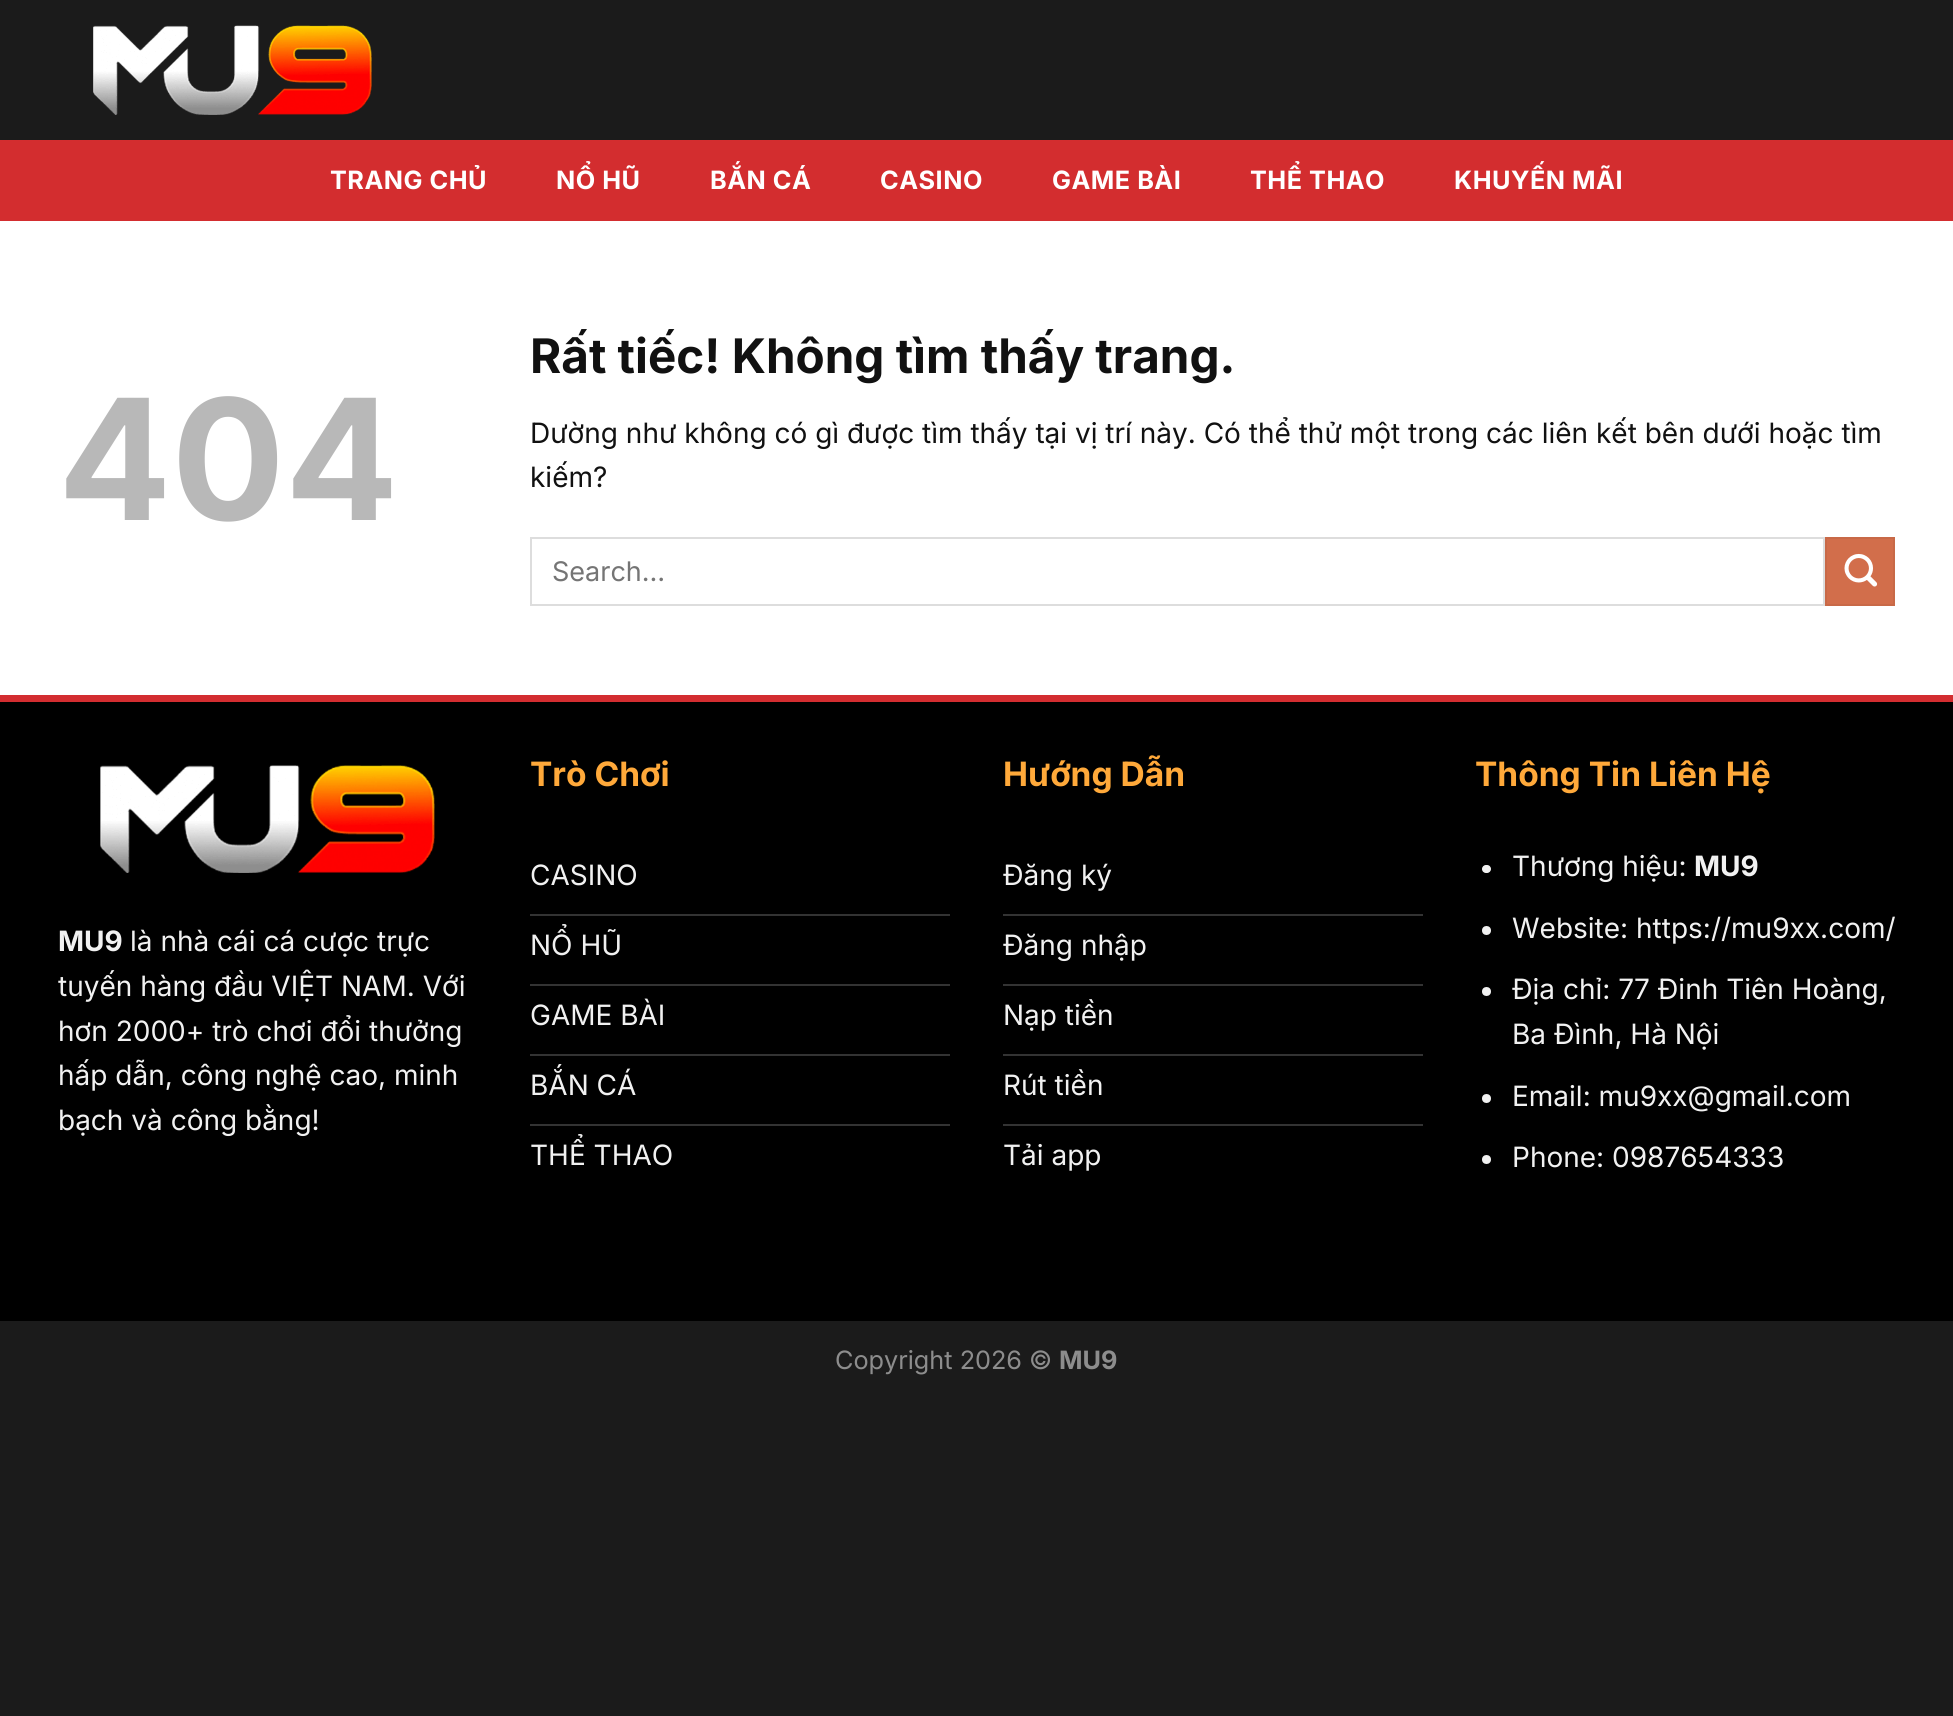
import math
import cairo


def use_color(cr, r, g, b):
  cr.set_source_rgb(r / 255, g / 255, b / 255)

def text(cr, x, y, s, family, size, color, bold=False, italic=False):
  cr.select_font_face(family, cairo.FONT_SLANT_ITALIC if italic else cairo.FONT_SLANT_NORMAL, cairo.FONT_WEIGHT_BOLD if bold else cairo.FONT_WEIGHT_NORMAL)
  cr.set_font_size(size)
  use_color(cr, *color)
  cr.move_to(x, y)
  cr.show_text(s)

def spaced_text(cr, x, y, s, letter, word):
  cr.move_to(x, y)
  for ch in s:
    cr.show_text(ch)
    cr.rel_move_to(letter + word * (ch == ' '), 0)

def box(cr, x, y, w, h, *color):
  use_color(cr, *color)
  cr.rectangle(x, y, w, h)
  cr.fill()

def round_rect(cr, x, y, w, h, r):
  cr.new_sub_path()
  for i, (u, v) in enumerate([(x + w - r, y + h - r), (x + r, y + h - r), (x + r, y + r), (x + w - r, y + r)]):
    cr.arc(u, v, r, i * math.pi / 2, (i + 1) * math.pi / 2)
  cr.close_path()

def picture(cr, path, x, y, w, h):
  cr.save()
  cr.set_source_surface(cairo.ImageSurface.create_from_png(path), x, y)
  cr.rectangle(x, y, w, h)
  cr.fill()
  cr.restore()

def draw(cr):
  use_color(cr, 27, 27, 27)
  cr.paint()
  box(cr, 0, 221, 1953, 474, 255, 255, 255)
  picture(cr, "img_01.png", 93, 25, 279, 90)
  box(cr, 0, 140, 1953, 81, 211, 45, 47)
  cr.rectangle(531, 538, 1293, 67)
  use_color(cr, 221, 221, 221)
  cr.stroke()
  use_color(cr, 210, 110, 75)
  cr.rectangle(1826, 538, 68, 67)
  cr.fill_preserve()
  use_color(cr, 200, 105, 71)
  cr.stroke()
  picture(cr, "img_02.png", 1844, 553, 34, 34)
  box(cr, 0, 702, 1953, 619, 0, 0, 0)
  box(cr, 0, 695, 1953, 7, 211, 45, 48)
  picture(cr, "img_03.png", 100, 765, 335, 108)
  box(cr, 530, 914, 420, 2, 51, 51, 51)
  box(cr, 530, 984, 420, 2, 51, 51, 51)
  box(cr, 530, 1054, 420, 2, 51, 51, 51)
  box(cr, 530, 1124, 420, 2, 51, 51, 51)
  box(cr, 1003, 914, 420, 2, 51, 51, 51)
  box(cr, 1003, 984, 420, 2, 51, 51, 51)
  box(cr, 1003, 1054, 420, 2, 51, 51, 51)
  box(cr, 1003, 1124, 420, 2, 51, 51, 51)
  use_color(cr, 241, 241, 241)
  round_rect(cr, 1482, 865, 9, 8, 4)
  cr.fill()
  cr.arc(1486.5, 930.5, 4.5, 0, 2 * math.pi)
  cr.fill()
  cr.arc(1486.5, 991.5, 4.5, 0, 2 * math.pi)
  cr.fill()
  cr.arc(1486.5, 1098.5, 4.5, 0, 2 * math.pi)
  cr.fill()
  cr.arc(1486.5, 1159.5, 4.5, 0, 2 * math.pi)
  cr.fill()
  cr.select_font_face("Inter", cairo.FONT_SLANT_NORMAL, cairo.FONT_WEIGHT_BOLD)
  cr.set_font_size(25.25)
  use_color(cr, 255, 255, 255)
  spaced_text(cr, 330, 189, "TRANG CHỦ", 0.5, 0)
  spaced_text(cr, 556, 189, "NỔ HŨ", 0.5, 0)
  spaced_text(cr, 710, 189, "BẮN CÁ", 0.5, 0)
  spaced_text(cr, 880, 189, "CASINO", 0.5, 0)
  spaced_text(cr, 1052, 189, "GAME BÀI", 0.5, 0)
  spaced_text(cr, 1250, 189, "THỂ THAO", 0.5, 0)
  spaced_text(cr, 1454, 189, "KHUYẾN MÃI", 0.5, 0)
  text(cr, 58, 520, "404", "Inter", 168, (184, 184, 184), bold=True)
  text(cr, 530, 373, "Rất tiếc! Không tìm thấy trang.", "Inter", 47.6, (17, 17, 17), bold=True)
  text(cr, 530, 443, "Dường như không có gì được tìm thấy tại vị trí này. Có thể thử một trong các liên kết bên dưới hoặc tìm", "Inter", 28, (17, 17, 17))
  text(cr, 530, 487, "kiếm?", "Inter", 28, (17, 17, 17))
  text(cr, 552, 581, "Search…", "Inter", 27, (117, 117, 117))
  text(cr, 58, 951, "MU9", "Inter", 28, (241, 241, 241), bold=True)
  text(cr, 130, 951, "là nhà cái cá cược trực", "Inter", 28, (241, 241, 241))
  text(cr, 58, 996, "tuyến hàng đầu VIỆT NAM. Với", "Inter", 28, (241, 241, 241))
  text(cr, 58, 1041, "hơn 2000+ trò chơi đổi thưởng", "Inter", 28, (241, 241, 241))
  text(cr, 58, 1085, "hấp dẫn, công nghệ cao, minh", "Inter", 28, (241, 241, 241))
  text(cr, 58, 1130, "bạch và công bằng!", "Inter", 28, (241, 241, 241))
  text(cr, 530, 786, "Trò Chơi", "Inter", 33.5, (255, 169, 58), bold=True)
  text(cr, 530, 885, "CASINO", "Inter", 28, (241, 241, 241))
  text(cr, 530, 955, "NỔ HŨ", "Inter", 28, (241, 241, 241))
  text(cr, 530, 1025, "GAME BÀI", "Inter", 28, (241, 241, 241))
  text(cr, 530, 1095, "BẮN CÁ", "Inter", 28, (241, 241, 241))
  text(cr, 530, 1165, "THỂ THAO", "Inter", 28, (241, 241, 241))
  text(cr, 1003, 786, "Hướng Dẫn", "Inter", 33.5, (255, 169, 58), bold=True)
  text(cr, 1003, 885, "Đăng ký", "Inter", 28, (241, 241, 241))
  text(cr, 1003, 955, "Đăng nhập", "Inter", 28, (241, 241, 241))
  text(cr, 1003, 1025, "Nạp tiền", "Inter", 28, (241, 241, 241))
  text(cr, 1003, 1095, "Rút tiền", "Inter", 28, (241, 241, 241))
  text(cr, 1003, 1165, "Tải app", "Inter", 28, (241, 241, 241))
  text(cr, 1475, 786, "Thông Tin Liên Hệ", "Inter", 33.5, (255, 169, 58), bold=True)
  text(cr, 1512, 876, "Thương hiệu:", "Inter", 28, (241, 241, 241))
  text(cr, 1694, 876, "MU9", "Inter", 28, (241, 241, 241), bold=True)
  text(cr, 1512, 938, "Website: https://mu9xx.com/", "Inter", 28, (241, 241, 241))
  text(cr, 1512, 999, "Địa chỉ: 77 Đinh Tiên Hoàng,", "Inter", 28, (241, 241, 241))
  text(cr, 1512, 1044, "Ba Đình, Hà Nội", "Inter", 28, (241, 241, 241))
  text(cr, 1512, 1106, "Email: mu9xx@gmail.com", "Inter", 28, (241, 241, 241))
  text(cr, 1512, 1167, "Phone: 0987654333", "Inter", 28, (241, 241, 241))
  text(cr, 835, 1369, "Copyright 2026 ©", "Inter", 25.25, (141, 141, 141))
  text(cr, 1059, 1369, "MU9", "Inter", 25.25, (141, 141, 141), bold=True)


surface = cairo.ImageSurface(cairo.FORMAT_RGB24, 1953, 1716)
cr = cairo.Context(surface)
options = cairo.FontOptions()
options.set_hint_metrics(cairo.HINT_METRICS_OFF)
options.set_hint_style(cairo.HINT_STYLE_NONE)
cr.set_font_options(options)
cr.set_miter_limit(4)
draw(cr)
surface.write_to_png("out.png")
